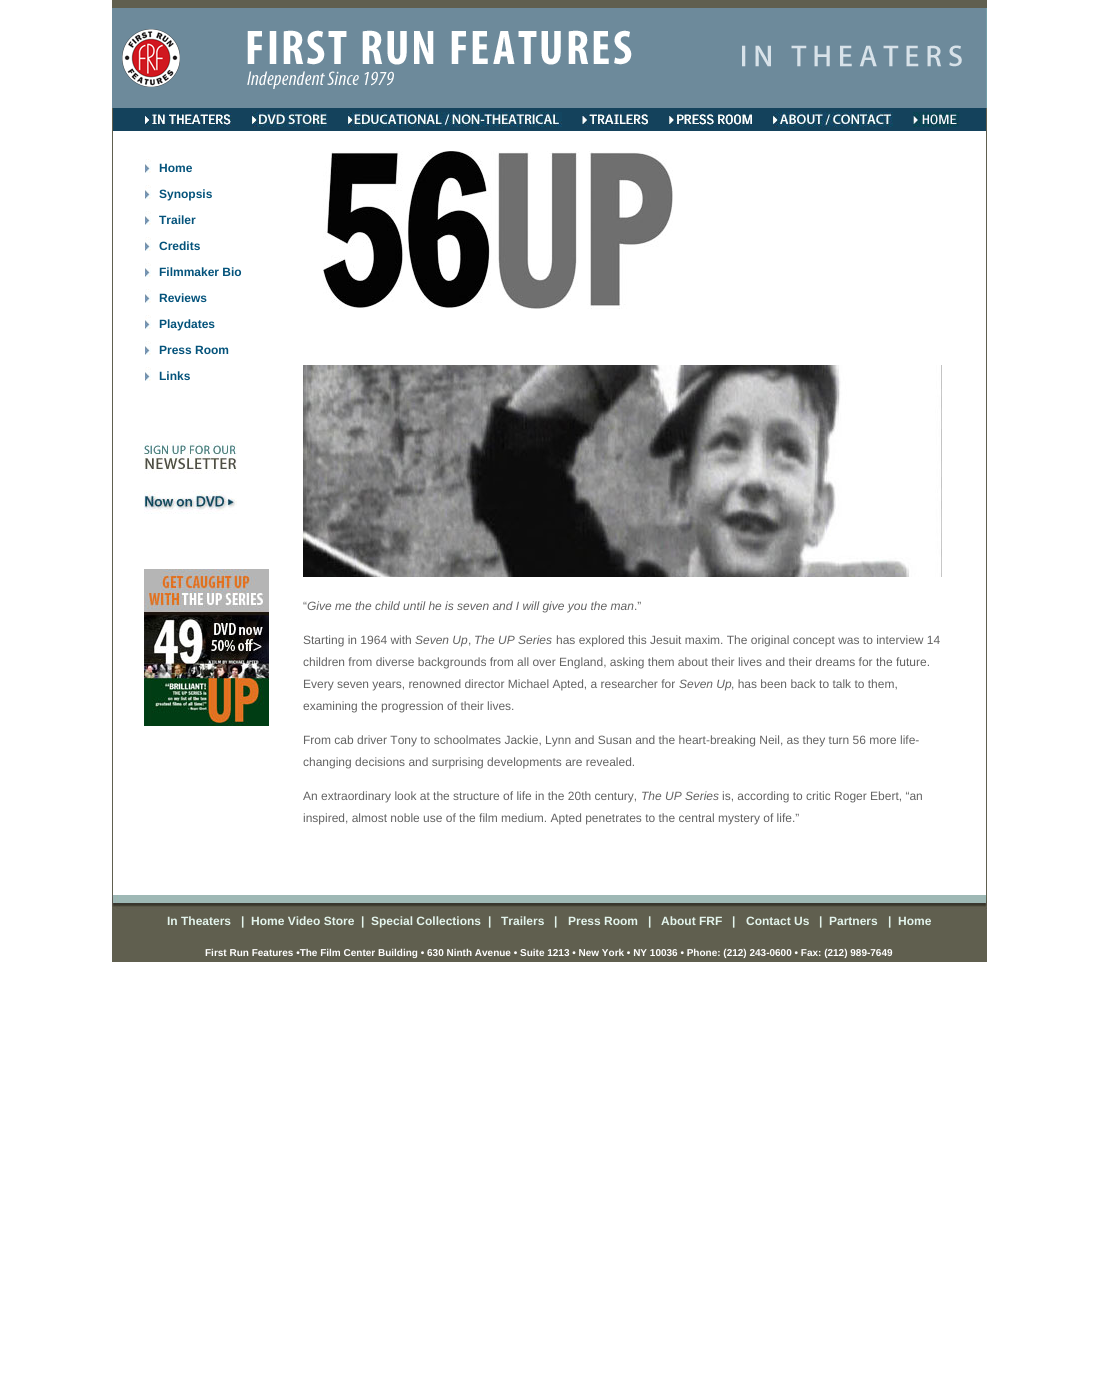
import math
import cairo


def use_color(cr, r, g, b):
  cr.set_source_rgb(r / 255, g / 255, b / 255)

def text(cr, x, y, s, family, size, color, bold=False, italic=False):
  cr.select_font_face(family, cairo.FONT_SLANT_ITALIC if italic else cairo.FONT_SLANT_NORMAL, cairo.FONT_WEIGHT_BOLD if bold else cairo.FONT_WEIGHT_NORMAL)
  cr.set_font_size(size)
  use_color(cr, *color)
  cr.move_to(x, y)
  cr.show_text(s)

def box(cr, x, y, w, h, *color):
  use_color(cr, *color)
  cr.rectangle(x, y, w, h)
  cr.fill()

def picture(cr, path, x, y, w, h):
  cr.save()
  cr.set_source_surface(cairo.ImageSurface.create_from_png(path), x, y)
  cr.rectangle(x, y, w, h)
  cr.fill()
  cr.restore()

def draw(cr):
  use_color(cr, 255, 255, 255)
  cr.paint()
  box(cr, 112, 0, 875, 8, 96, 95, 79)
  box(cr, 112, 8, 8, 100, 109, 138, 155)
  picture(cr, "img_01.png", 120, 8, 92, 100)
  box(cr, 212, 8, 33, 100, 109, 138, 155)
  picture(cr, "img_02.png", 245, 8, 394, 100)
  box(cr, 639, 8, 347, 100, 109, 138, 155)
  picture(cr, "img_03.png", 742, 45, 220, 22)
  box(cr, 986, 8, 1, 100, 115, 157, 167)
  box(cr, 112, 108, 1, 787, 96, 95, 79)
  box(cr, 113, 108, 873, 23, 20, 66, 92)
  picture(cr, "img_04.png", 145, 112, 87, 15)
  picture(cr, "img_05.png", 252, 112, 76, 15)
  picture(cr, "img_06.png", 348, 112, 214, 15)
  picture(cr, "img_07.png", 582, 112, 67, 15)
  picture(cr, "img_08.png", 669, 112, 84, 15)
  picture(cr, "img_09.png", 773, 112, 120, 15)
  picture(cr, "img_10.png", 913, 112, 46, 15)
  box(cr, 986, 108, 1, 787, 96, 95, 79)
  picture(cr, "img_11.png", 145, 159, 6, 14)
  picture(cr, "img_11.png", 145, 185, 6, 14)
  picture(cr, "img_11.png", 145, 211, 6, 14)
  picture(cr, "img_11.png", 145, 237, 6, 14)
  picture(cr, "img_11.png", 145, 263, 6, 14)
  picture(cr, "img_11.png", 145, 289, 6, 14)
  picture(cr, "img_11.png", 145, 315, 6, 14)
  picture(cr, "img_11.png", 145, 341, 6, 14)
  picture(cr, "img_11.png", 145, 367, 6, 14)
  picture(cr, "img_12.png", 144, 442, 93, 32)
  picture(cr, "img_13.png", 144, 490, 93, 24)
  picture(cr, "img_14.png", 144, 569, 125, 157)
  picture(cr, "img_15.png", 323, 151, 350, 158)
  picture(cr, "img_16.png", 303, 365, 639, 212)
  picture(cr, "img_17.png", 112, 895, 875, 15)
  box(cr, 112, 910, 875, 52, 96, 95, 79)
  text(cr, 159, 172, "Home", "Liberation Sans", 12, (4, 83, 123), bold=True)
  text(cr, 159, 198, "Synopsis", "Liberation Sans", 12, (4, 83, 123), bold=True)
  text(cr, 159, 224, "Trailer", "Liberation Sans", 12, (4, 83, 123), bold=True)
  text(cr, 159, 250, "Credits", "Liberation Sans", 12, (4, 83, 123), bold=True)
  text(cr, 159, 276, "Filmmaker Bio", "Liberation Sans", 12, (4, 83, 123), bold=True)
  text(cr, 159, 302, "Reviews", "Liberation Sans", 12, (4, 83, 123), bold=True)
  text(cr, 159, 328, "Playdates", "Liberation Sans", 12, (4, 83, 123), bold=True)
  text(cr, 159, 354, "Press Room", "Liberation Sans", 12, (4, 83, 123), bold=True)
  text(cr, 159, 380, "Links", "Liberation Sans", 12, (4, 83, 123), bold=True)
  text(cr, 303, 610, "“", "Liberation Sans", 12, (98, 98, 98))
  text(cr, 307, 610, "Give me the child until he is seven and I will give you the man", "Liberation Sans", 12, (98, 98, 98), italic=True)
  text(cr, 634, 610, ".”", "Liberation Sans", 12, (98, 98, 98))
  text(cr, 303, 644, "Starting in 1964 with", "Liberation Sans", 12, (98, 98, 98))
  text(cr, 415, 644, "Seven Up", "Liberation Sans", 12, (98, 98, 98), italic=True)
  text(cr, 468, 644, ",", "Liberation Sans", 12, (98, 98, 98))
  text(cr, 474, 644, "The UP Series", "Liberation Sans", 12, (98, 98, 98), italic=True)
  text(cr, 556, 644, "has explored this Jesuit maxim. The original concept was to interview 14", "Liberation Sans", 12, (98, 98, 98))
  text(cr, 303, 666, "children from diverse backgrounds from all over England, asking them about their lives and their dreams for the future.", "Liberation Sans", 12, (98, 98, 98))
  text(cr, 303, 688, "Every seven years, renowned director Michael Apted, a researcher for", "Liberation Sans", 12, (98, 98, 98))
  text(cr, 679, 688, "Seven Up", "Liberation Sans", 12, (98, 98, 98), italic=True)
  text(cr, 731, 688, ", has been back to talk to them,", "Liberation Sans", 12, (98, 98, 98))
  text(cr, 303, 710, "examining the progression of their lives.", "Liberation Sans", 12, (98, 98, 98))
  text(cr, 303, 744, "From cab driver Tony to schoolmates Jackie, Lynn and Susan and the heart-breaking Neil, as they turn 56 more life-", "Liberation Sans", 12, (98, 98, 98))
  text(cr, 303, 766, "changing decisions and surprising developments are revealed.", "Liberation Sans", 12, (98, 98, 98))
  text(cr, 303, 800, "An extraordinary look at the structure of life in the 20th century,", "Liberation Sans", 12, (98, 98, 98))
  text(cr, 641, 800, "The UP Series", "Liberation Sans", 12, (98, 98, 98), italic=True)
  text(cr, 722, 800, "is, according to critic Roger Ebert, “an", "Liberation Sans", 12, (98, 98, 98))
  text(cr, 303, 822, "inspired, almost noble use of the film medium. Apted penetrates to the central mystery of life.”", "Liberation Sans", 12, (98, 98, 98))
  text(cr, 167, 925, "In Theaters", "Liberation Sans", 12, (227, 244, 236), bold=True)
  text(cr, 241, 925, "|", "Liberation Sans", 12, (227, 244, 236), bold=True)
  text(cr, 251, 925, "Home Video Store", "Liberation Sans", 12, (227, 244, 236), bold=True)
  text(cr, 361, 925, "|", "Liberation Sans", 12, (227, 244, 236), bold=True)
  text(cr, 371, 925, "Special Collections", "Liberation Sans", 12, (227, 244, 236), bold=True)
  text(cr, 488, 925, "|", "Liberation Sans", 12, (227, 244, 236), bold=True)
  text(cr, 501, 925, "Trailers", "Liberation Sans", 12, (227, 244, 236), bold=True)
  text(cr, 554, 925, "|", "Liberation Sans", 12, (227, 244, 236), bold=True)
  text(cr, 568, 925, "Press Room", "Liberation Sans", 12, (227, 244, 236), bold=True)
  text(cr, 648, 925, "|", "Liberation Sans", 12, (227, 244, 236), bold=True)
  text(cr, 661, 925, "About FRF", "Liberation Sans", 12, (227, 244, 236), bold=True)
  text(cr, 732, 925, "|", "Liberation Sans", 12, (227, 244, 236), bold=True)
  text(cr, 746, 925, "Contact Us", "Liberation Sans", 12, (227, 244, 236), bold=True)
  text(cr, 819, 925, "|", "Liberation Sans", 12, (227, 244, 236), bold=True)
  text(cr, 829, 925, "Partners", "Liberation Sans", 12, (227, 244, 236), bold=True)
  text(cr, 888, 925, "|", "Liberation Sans", 12, (227, 244, 236), bold=True)
  text(cr, 898, 925, "Home", "Liberation Sans", 12, (227, 244, 236), bold=True)
  text(cr, 205, 956, "First Run Features •The Film Center Building • 630 Ninth Avenue • Suite 1213 • New York • NY 10036 • Phone: (212) 243-0600 • Fax: (212) 989-7649", "Liberation Sans", 10, (255, 255, 255), bold=True)


surface = cairo.ImageSurface(cairo.FORMAT_RGB24, 1098, 1396)
cr = cairo.Context(surface)
options = cairo.FontOptions()
options.set_hint_metrics(cairo.HINT_METRICS_OFF)
options.set_hint_style(cairo.HINT_STYLE_NONE)
cr.set_font_options(options)
cr.set_miter_limit(4)
draw(cr)
surface.write_to_png("out.png")
